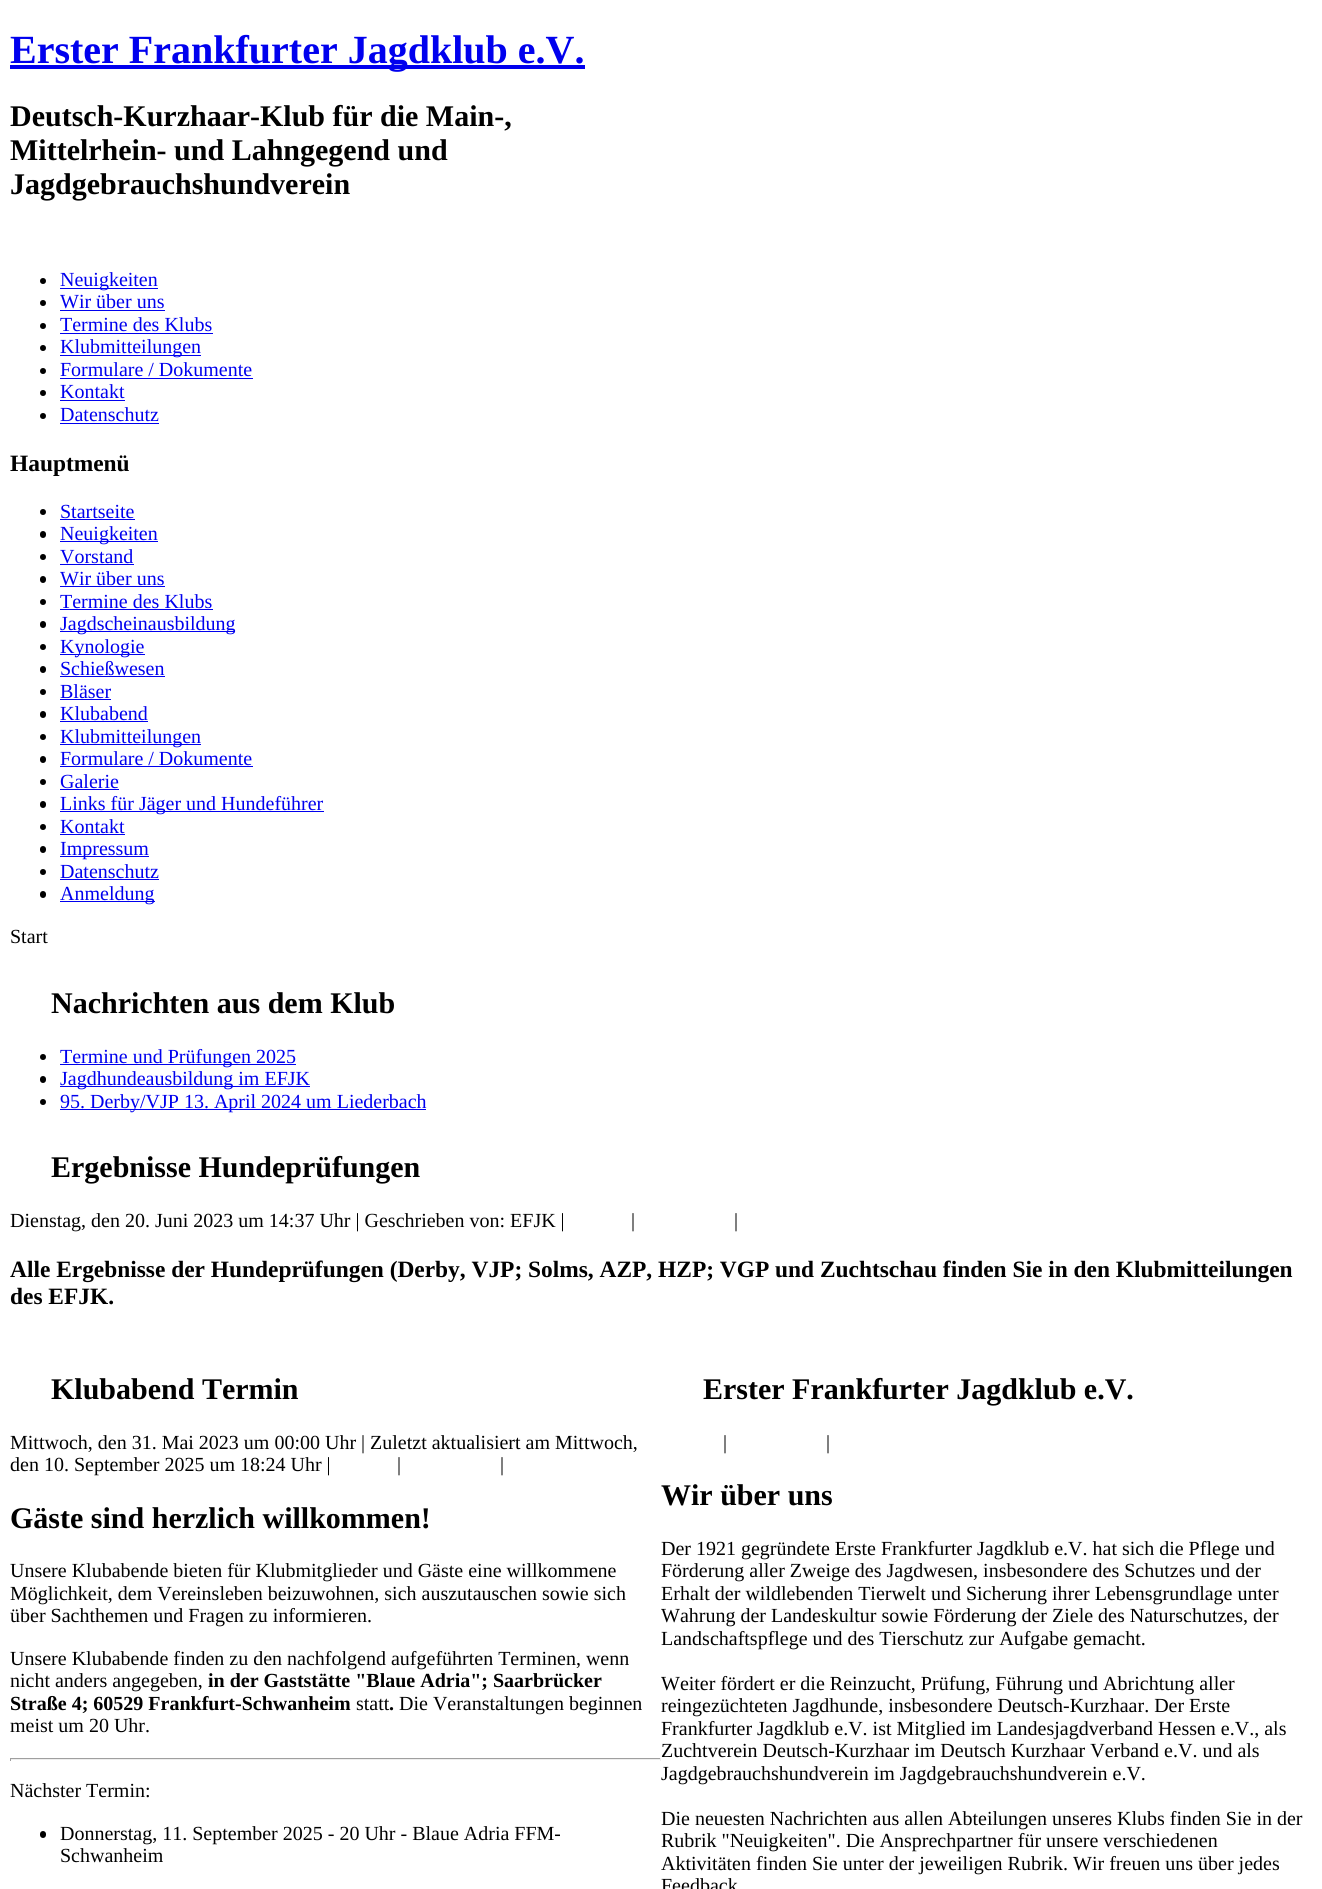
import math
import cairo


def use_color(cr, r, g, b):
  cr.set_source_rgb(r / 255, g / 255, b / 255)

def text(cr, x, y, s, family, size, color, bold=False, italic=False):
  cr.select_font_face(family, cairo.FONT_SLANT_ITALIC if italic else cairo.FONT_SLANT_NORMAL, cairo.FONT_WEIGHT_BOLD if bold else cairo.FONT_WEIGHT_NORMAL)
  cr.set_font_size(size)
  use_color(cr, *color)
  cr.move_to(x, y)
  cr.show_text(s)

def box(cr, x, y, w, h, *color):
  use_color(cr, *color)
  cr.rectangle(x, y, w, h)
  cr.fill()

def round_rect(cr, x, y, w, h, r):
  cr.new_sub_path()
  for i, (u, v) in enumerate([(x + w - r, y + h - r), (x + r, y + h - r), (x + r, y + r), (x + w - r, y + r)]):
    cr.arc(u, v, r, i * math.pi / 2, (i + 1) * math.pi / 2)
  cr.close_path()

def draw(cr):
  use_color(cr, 255, 255, 255)
  cr.paint()
  box(cr, 10, 65, 575, 4, 0, 0, 238)
  use_color(cr, 0, 0, 0)
  cr.arc(43, 281, 3, 0, 2 * math.pi)
  cr.fill()
  box(cr, 60, 288, 98, 1, 0, 0, 238)
  use_color(cr, 0, 0, 0)
  cr.arc(43, 303, 3, 0, 2 * math.pi)
  cr.fill()
  box(cr, 60, 310, 105, 1, 0, 0, 238)
  use_color(cr, 0, 0, 0)
  cr.arc(43, 326, 3, 0, 2 * math.pi)
  cr.fill()
  box(cr, 60, 333, 153, 1, 0, 0, 238)
  use_color(cr, 0, 0, 0)
  cr.arc(43, 348, 3, 0, 2 * math.pi)
  cr.fill()
  box(cr, 60, 355, 141, 1, 0, 0, 238)
  use_color(cr, 0, 0, 0)
  cr.arc(43, 371, 3, 0, 2 * math.pi)
  cr.fill()
  box(cr, 60, 378, 193, 1, 0, 0, 238)
  use_color(cr, 0, 0, 0)
  cr.arc(43, 393, 3, 0, 2 * math.pi)
  cr.fill()
  box(cr, 60, 400, 65, 1, 0, 0, 238)
  use_color(cr, 0, 0, 0)
  cr.arc(43, 416, 3, 0, 2 * math.pi)
  cr.fill()
  box(cr, 60, 423, 99, 1, 0, 0, 238)
  use_color(cr, 0, 0, 0)
  cr.arc(43, 512, 3, 0, 2 * math.pi)
  cr.fill()
  box(cr, 60, 519, 75, 1, 0, 0, 238)
  use_color(cr, 0, 0, 0)
  round_rect(cr, 40, 531, 6, 7, 3)
  cr.fill()
  box(cr, 60, 541, 98, 1, 0, 0, 238)
  use_color(cr, 0, 0, 0)
  cr.arc(43, 557, 3, 0, 2 * math.pi)
  cr.fill()
  box(cr, 60, 564, 74, 1, 0, 0, 238)
  use_color(cr, 0, 0, 0)
  round_rect(cr, 40, 576, 6, 7, 3)
  cr.fill()
  box(cr, 60, 586, 105, 1, 0, 0, 238)
  use_color(cr, 0, 0, 0)
  cr.arc(43, 602, 3, 0, 2 * math.pi)
  cr.fill()
  box(cr, 60, 609, 153, 1, 0, 0, 238)
  use_color(cr, 0, 0, 0)
  round_rect(cr, 40, 621, 6, 7, 3)
  cr.fill()
  box(cr, 60, 631, 175, 1, 0, 0, 238)
  use_color(cr, 0, 0, 0)
  cr.arc(43, 647, 3, 0, 2 * math.pi)
  cr.fill()
  box(cr, 60, 654, 85, 1, 0, 0, 238)
  use_color(cr, 0, 0, 0)
  round_rect(cr, 40, 666, 6, 7, 3)
  cr.fill()
  box(cr, 60, 676, 105, 1, 0, 0, 238)
  use_color(cr, 0, 0, 0)
  cr.arc(43, 692, 3, 0, 2 * math.pi)
  cr.fill()
  box(cr, 60, 699, 51, 1, 0, 0, 238)
  use_color(cr, 0, 0, 0)
  round_rect(cr, 40, 711, 6, 7, 3)
  cr.fill()
  box(cr, 60, 721, 88, 1, 0, 0, 238)
  use_color(cr, 0, 0, 0)
  cr.arc(43, 737, 3, 0, 2 * math.pi)
  cr.fill()
  box(cr, 60, 744, 141, 1, 0, 0, 238)
  use_color(cr, 0, 0, 0)
  round_rect(cr, 40, 756, 6, 7, 3)
  cr.fill()
  box(cr, 60, 766, 193, 1, 0, 0, 238)
  use_color(cr, 0, 0, 0)
  cr.arc(43, 782, 3, 0, 2 * math.pi)
  cr.fill()
  box(cr, 60, 789, 59, 1, 0, 0, 238)
  use_color(cr, 0, 0, 0)
  round_rect(cr, 40, 801, 6, 7, 3)
  cr.fill()
  box(cr, 60, 811, 264, 1, 0, 0, 238)
  use_color(cr, 0, 0, 0)
  cr.arc(43, 827, 3, 0, 2 * math.pi)
  cr.fill()
  box(cr, 60, 834, 65, 1, 0, 0, 238)
  use_color(cr, 0, 0, 0)
  round_rect(cr, 40, 846, 6, 7, 3)
  cr.fill()
  box(cr, 60, 856, 89, 1, 0, 0, 238)
  use_color(cr, 0, 0, 0)
  cr.arc(43, 872, 3, 0, 2 * math.pi)
  cr.fill()
  box(cr, 60, 879, 99, 1, 0, 0, 238)
  use_color(cr, 0, 0, 0)
  round_rect(cr, 40, 891, 6, 7, 3)
  cr.fill()
  box(cr, 60, 901, 95, 1, 0, 0, 238)
  use_color(cr, 0, 0, 0)
  cr.arc(43, 1057, 3, 0, 2 * math.pi)
  cr.fill()
  box(cr, 60, 1064, 236, 1, 0, 0, 238)
  use_color(cr, 0, 0, 0)
  round_rect(cr, 40, 1076, 6, 7, 3)
  cr.fill()
  box(cr, 60, 1086, 250, 1, 0, 0, 238)
  use_color(cr, 0, 0, 0)
  cr.arc(43, 1102, 3, 0, 2 * math.pi)
  cr.fill()
  box(cr, 60, 1109, 366, 1, 0, 0, 238)
  box(cr, 10, 1758, 651, 1, 159, 159, 159)
  box(cr, 660, 1758, 1, 3, 238, 238, 238)
  box(cr, 10, 1759, 651, 1, 238, 238, 238)
  box(cr, 10, 1758, 1, 3, 159, 159, 159)
  use_color(cr, 0, 0, 0)
  round_rect(cr, 40, 1831, 6, 7, 3)
  cr.fill()
  text(cr, 10, 63, "Erster Frankfurter Jagdklub e.V.", "Liberation Serif", 40, (0, 0, 238), bold=True)
  text(cr, 10, 126, "Deutsch-Kurzhaar-Klub für die Main-,", "Liberation Serif", 30, (0, 0, 0), bold=True)
  text(cr, 10, 160, "Mittelrhein- und Lahngegend und", "Liberation Serif", 30, (0, 0, 0), bold=True)
  text(cr, 10, 194, "Jagdgebrauchshundverein", "Liberation Serif", 30, (0, 0, 0), bold=True)
  text(cr, 60, 286, "Neuigkeiten", "Liberation Serif", 20, (0, 0, 238))
  text(cr, 60, 308, "Wir über uns", "Liberation Serif", 20, (0, 0, 238))
  text(cr, 60, 331, "Termine des Klubs", "Liberation Serif", 20, (0, 0, 238))
  text(cr, 60, 353, "Klubmitteilungen", "Liberation Serif", 20, (0, 0, 238))
  text(cr, 60, 376, "Formulare / Dokumente", "Liberation Serif", 20, (0, 0, 238))
  text(cr, 60, 398, "Kontakt", "Liberation Serif", 20, (0, 0, 238))
  text(cr, 60, 421, "Datenschutz", "Liberation Serif", 20, (0, 0, 238))
  text(cr, 10, 471, "Hauptmenü", "Liberation Serif", 23.4, (0, 0, 0), bold=True)
  text(cr, 60, 518, "Startseite", "Liberation Serif", 20, (0, 0, 238))
  text(cr, 60, 540, "Neuigkeiten", "Liberation Serif", 20, (0, 0, 238))
  text(cr, 60, 563, "Vorstand", "Liberation Serif", 20, (0, 0, 238))
  text(cr, 60, 585, "Wir über uns", "Liberation Serif", 20, (0, 0, 238))
  text(cr, 60, 608, "Termine des Klubs", "Liberation Serif", 20, (0, 0, 238))
  text(cr, 60, 630, "Jagdscheinausbildung", "Liberation Serif", 20, (0, 0, 238))
  text(cr, 60, 653, "Kynologie", "Liberation Serif", 20, (0, 0, 238))
  text(cr, 60, 675, "Schießwesen", "Liberation Serif", 20, (0, 0, 238))
  text(cr, 60, 698, "Bläser", "Liberation Serif", 20, (0, 0, 238))
  text(cr, 60, 720, "Klubabend", "Liberation Serif", 20, (0, 0, 238))
  text(cr, 60, 743, "Klubmitteilungen", "Liberation Serif", 20, (0, 0, 238))
  text(cr, 60, 765, "Formulare / Dokumente", "Liberation Serif", 20, (0, 0, 238))
  text(cr, 60, 788, "Galerie", "Liberation Serif", 20, (0, 0, 238))
  text(cr, 60, 810, "Links für Jäger und Hundeführer", "Liberation Serif", 20, (0, 0, 238))
  text(cr, 60, 833, "Kontakt", "Liberation Serif", 20, (0, 0, 238))
  text(cr, 60, 855, "Impressum", "Liberation Serif", 20, (0, 0, 238))
  text(cr, 60, 878, "Datenschutz", "Liberation Serif", 20, (0, 0, 238))
  text(cr, 60, 900, "Anmeldung", "Liberation Serif", 20, (0, 0, 238))
  text(cr, 10, 943, "Start", "Liberation Serif", 20, (0, 0, 0))
  text(cr, 51, 1013, "Nachrichten aus dem Klub", "Liberation Serif", 30, (0, 0, 0), bold=True)
  text(cr, 60, 1063, "Termine und Prüfungen 2025", "Liberation Serif", 20, (0, 0, 238))
  text(cr, 60, 1085, "Jagdhundeausbildung im EFJK", "Liberation Serif", 20, (0, 0, 238))
  text(cr, 60, 1108, "95. Derby/VJP 13. April 2024 um Liederbach", "Liberation Serif", 20, (0, 0, 238))
  text(cr, 51, 1177, "Ergebnisse Hundeprüfungen", "Liberation Serif", 30, (0, 0, 0), bold=True)
  text(cr, 10, 1227, "Dienstag, den 20. Juni 2023 um 14:37 Uhr | Geschrieben von: EFJK |", "Liberation Serif", 20, (0, 0, 0))
  text(cr, 631, 1227, "|", "Liberation Serif", 20, (0, 0, 0))
  text(cr, 734, 1227, "|", "Liberation Serif", 20, (0, 0, 0))
  text(cr, 10, 1277, "Alle Ergebnisse der Hundeprüfungen (Derby, VJP; Solms, AZP, HZP; VGP und Zuchtschau finden Sie in den Klubmitteilungen", "Liberation Serif", 23.4, (0, 0, 0), bold=True)
  text(cr, 10, 1304, "des EFJK.", "Liberation Serif", 23.4, (0, 0, 0), bold=True)
  text(cr, 51, 1399, "Klubabend Termin", "Liberation Serif", 30, (0, 0, 0), bold=True)
  text(cr, 10, 1449, "Mittwoch, den 31. Mai 2023 um 00:00 Uhr | Zuletzt aktualisiert am Mittwoch,", "Liberation Serif", 20, (0, 0, 0))
  text(cr, 10, 1471, "den 10. September 2025 um 18:24 Uhr |", "Liberation Serif", 20, (0, 0, 0))
  text(cr, 397, 1471, "|", "Liberation Serif", 20, (0, 0, 0))
  text(cr, 500, 1471, "|", "Liberation Serif", 20, (0, 0, 0))
  text(cr, 10, 1528, "Gäste sind herzlich willkommen!", "Liberation Serif", 30, (0, 0, 0), bold=True)
  text(cr, 10, 1577, "Unsere Klubabende bieten für Klubmitglieder und Gäste eine willkommene", "Liberation Serif", 20, (0, 0, 0))
  text(cr, 10, 1600, "Möglichkeit, dem Vereinsleben beizuwohnen, sich auszutauschen sowie sich", "Liberation Serif", 20, (0, 0, 0))
  text(cr, 10, 1622, "über Sachthemen und Fragen zu informieren.", "Liberation Serif", 20, (0, 0, 0))
  text(cr, 10, 1665, "Unsere Klubabende finden zu den nachfolgend aufgeführten Terminen, wenn", "Liberation Serif", 20, (0, 0, 0))
  text(cr, 10, 1687, "nicht anders angegeben,", "Liberation Serif", 20, (0, 0, 0))
  text(cr, 208, 1687, "in der Gaststätte \"Blaue Adria\"; Saarbrücker", "Liberation Serif", 20, (0, 0, 0), bold=True)
  text(cr, 10, 1710, "Straße 4; 60529 Frankfurt-Schwanheim", "Liberation Serif", 20, (0, 0, 0), bold=True)
  text(cr, 356, 1710, "statt", "Liberation Serif", 20, (0, 0, 0))
  text(cr, 389, 1710, ".", "Liberation Serif", 20, (0, 0, 0), bold=True)
  text(cr, 399, 1710, "Die Veranstaltungen beginnen", "Liberation Serif", 20, (0, 0, 0))
  text(cr, 10, 1732, "meist um 20 Uhr.", "Liberation Serif", 20, (0, 0, 0))
  text(cr, 10, 1797, "Nächster Termin:", "Liberation Serif", 20, (0, 0, 0))
  text(cr, 60, 1840, "Donnerstag, 11. September 2025 - 20 Uhr - Blaue Adria FFM-", "Liberation Serif", 20, (0, 0, 0))
  text(cr, 60, 1862, "Schwanheim", "Liberation Serif", 20, (0, 0, 0))
  text(cr, 703, 1399, "Erster Frankfurter Jagdklub e.V.", "Liberation Serif", 30, (0, 0, 0), bold=True)
  text(cr, 723, 1449, "|", "Liberation Serif", 20, (0, 0, 0))
  text(cr, 826, 1449, "|", "Liberation Serif", 20, (0, 0, 0))
  text(cr, 661, 1505, "Wir über uns", "Liberation Serif", 30, (0, 0, 0), bold=True)
  text(cr, 661, 1555, "Der 1921 gegründete Erste Frankfurter Jagdklub e.V. hat sich die Pflege und", "Liberation Serif", 20, (0, 0, 0))
  text(cr, 661, 1577, "Förderung aller Zweige des Jagdwesen, insbesondere des Schutzes und der", "Liberation Serif", 20, (0, 0, 0))
  text(cr, 661, 1600, "Erhalt der wildlebenden Tierwelt und Sicherung ihrer Lebensgrundlage unter", "Liberation Serif", 20, (0, 0, 0))
  text(cr, 661, 1622, "Wahrung der Landeskultur sowie Förderung der Ziele des Naturschutzes, der", "Liberation Serif", 20, (0, 0, 0))
  text(cr, 661, 1645, "Landschaftspflege und des Tierschutz zur Aufgabe gemacht.", "Liberation Serif", 20, (0, 0, 0))
  text(cr, 661, 1690, "Weiter fördert er die Reinzucht, Prüfung, Führung und Abrichtung aller", "Liberation Serif", 20, (0, 0, 0))
  text(cr, 661, 1712, "reingezüchteten Jagdhunde, insbesondere Deutsch-Kurzhaar. Der Erste", "Liberation Serif", 20, (0, 0, 0))
  text(cr, 661, 1735, "Frankfurter Jagdklub e.V. ist Mitglied im Landesjagdverband Hessen e.V., als", "Liberation Serif", 20, (0, 0, 0))
  text(cr, 661, 1757, "Zuchtverein Deutsch-Kurzhaar im Deutsch Kurzhaar Verband e.V. und als", "Liberation Serif", 20, (0, 0, 0))
  text(cr, 661, 1780, "Jagdgebrauchshundverein im Jagdgebrauchshundverein e.V.", "Liberation Serif", 20, (0, 0, 0))
  text(cr, 661, 1825, "Die neuesten Nachrichten aus allen Abteilungen unseres Klubs finden Sie in der", "Liberation Serif", 20, (0, 0, 0))
  text(cr, 661, 1847, "Rubrik \"Neuigkeiten\". Die Ansprechpartner für unsere verschiedenen", "Liberation Serif", 20, (0, 0, 0))
  text(cr, 661, 1870, "Aktivitäten finden Sie unter der jeweiligen Rubrik. Wir freuen uns über jedes", "Liberation Serif", 20, (0, 0, 0))
  text(cr, 661, 1892, "Feedback", "Liberation Serif", 20, (0, 0, 0))


surface = cairo.ImageSurface(cairo.FORMAT_RGB24, 1322, 1889)
cr = cairo.Context(surface)
options = cairo.FontOptions()
options.set_hint_metrics(cairo.HINT_METRICS_OFF)
options.set_hint_style(cairo.HINT_STYLE_NONE)
cr.set_font_options(options)
cr.set_miter_limit(4)
draw(cr)
surface.write_to_png("out.png")
